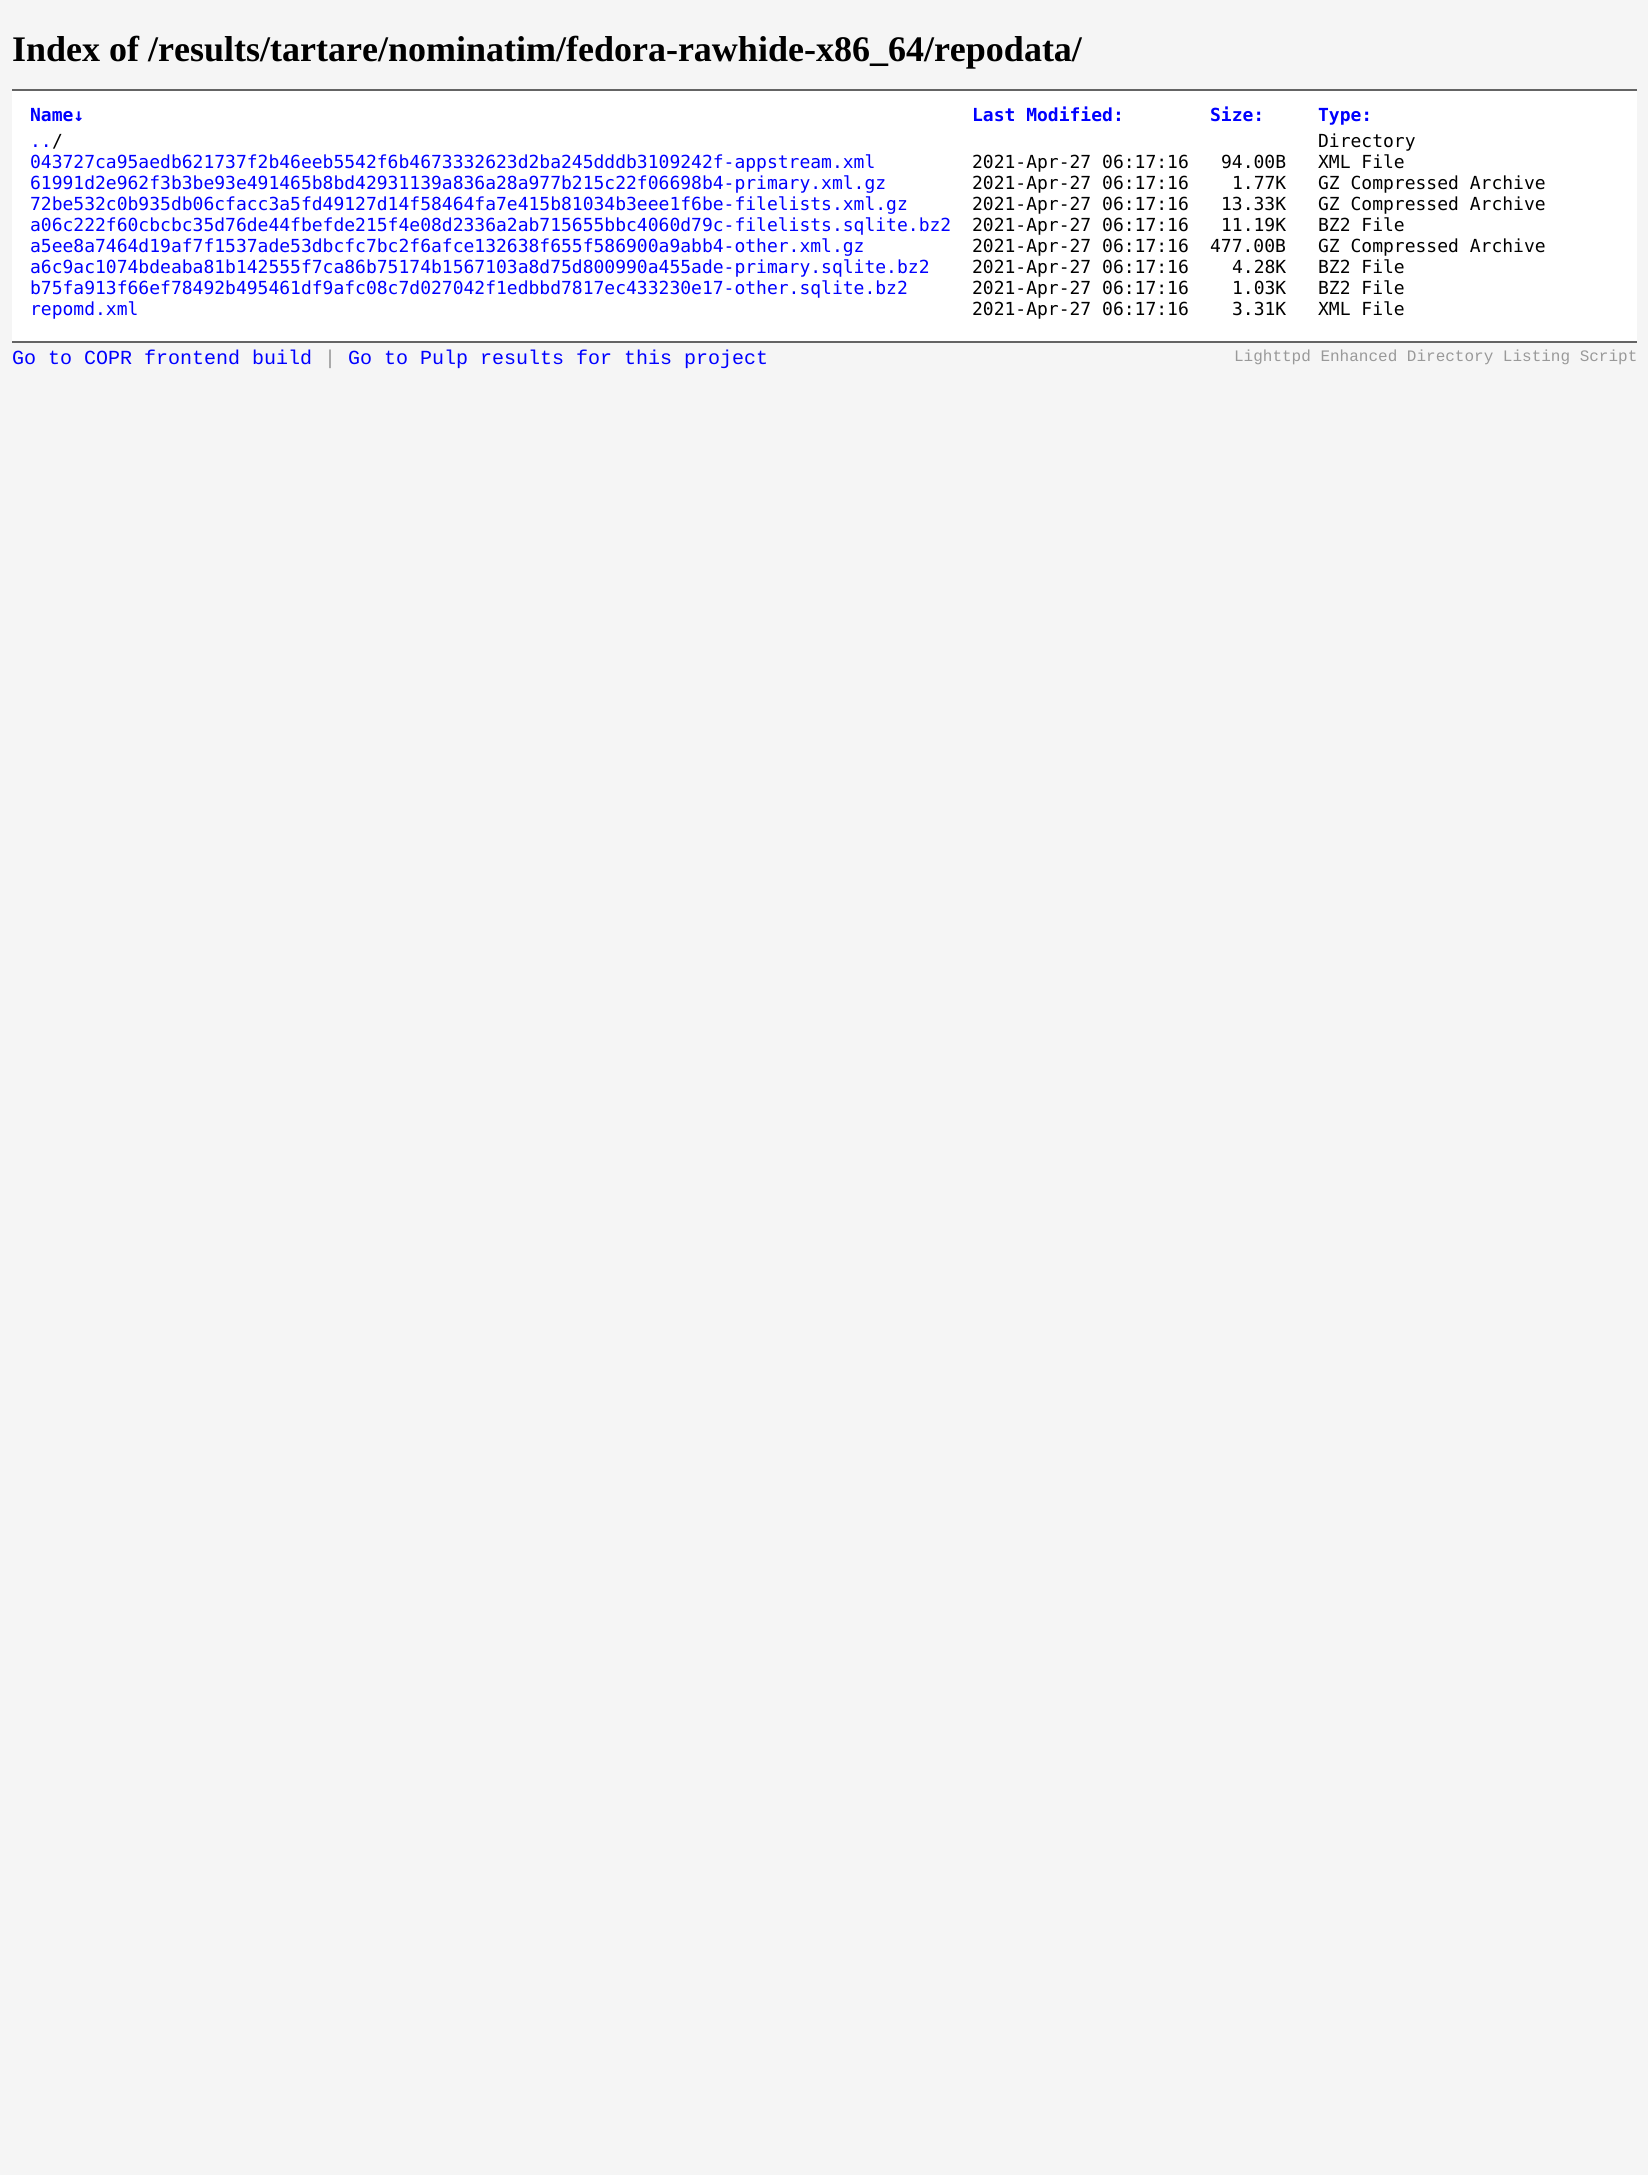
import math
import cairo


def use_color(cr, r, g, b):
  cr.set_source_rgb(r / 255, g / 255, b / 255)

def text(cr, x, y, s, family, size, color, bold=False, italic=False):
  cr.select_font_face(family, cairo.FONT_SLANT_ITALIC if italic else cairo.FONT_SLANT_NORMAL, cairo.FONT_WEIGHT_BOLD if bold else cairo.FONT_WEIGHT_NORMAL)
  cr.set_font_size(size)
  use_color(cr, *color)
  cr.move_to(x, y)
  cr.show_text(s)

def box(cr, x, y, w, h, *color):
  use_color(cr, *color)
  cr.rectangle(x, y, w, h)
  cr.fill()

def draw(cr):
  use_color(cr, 245, 245, 245)
  cr.paint()
  box(cr, 12, 91, 1625, 250, 255, 255, 255)
  box(cr, 12, 89, 1625, 2, 100, 100, 100)
  box(cr, 12, 341, 1625, 2, 100, 100, 100)
  text(cr, 12, 61, "Index of /results/tartare/nominatim/fedora-rawhide-x86_64/repodata/", "Liberation Serif", 36, (0, 0, 0), bold=True)
  text(cr, 30, 121, "Name↓", "DejaVu Sans Mono", 18, (0, 0, 255), bold=True)
  text(cr, 972, 121, "Last Modified:", "DejaVu Sans Mono", 18, (0, 0, 255), bold=True)
  text(cr, 1210, 121, "Size:", "DejaVu Sans Mono", 18, (0, 0, 255), bold=True)
  text(cr, 1318, 121, "Type:", "DejaVu Sans Mono", 18, (0, 0, 255), bold=True)
  text(cr, 30, 147, "..", "DejaVu Sans Mono", 18, (0, 0, 255))
  text(cr, 52, 147, "/", "DejaVu Sans Mono", 18, (0, 0, 0))
  text(cr, 1318, 147, "Directory", "DejaVu Sans Mono", 18, (0, 0, 0))
  text(cr, 30, 168, "043727ca95aedb621737f2b46eeb5542f6b4673332623d2ba245dddb3109242f-appstream.xml", "DejaVu Sans Mono", 18, (0, 0, 255))
  text(cr, 972, 168, "2021-Apr-27 06:17:16", "DejaVu Sans Mono", 18, (0, 0, 0))
  text(cr, 1221, 168, "94.00B", "DejaVu Sans Mono", 18, (0, 0, 0))
  text(cr, 1318, 168, "XML File", "DejaVu Sans Mono", 18, (0, 0, 0))
  text(cr, 30, 189, "61991d2e962f3b3be93e491465b8bd42931139a836a28a977b215c22f06698b4-primary.xml.gz", "DejaVu Sans Mono", 18, (0, 0, 255))
  text(cr, 972, 189, "2021-Apr-27 06:17:16", "DejaVu Sans Mono", 18, (0, 0, 0))
  text(cr, 1232, 189, "1.77K", "DejaVu Sans Mono", 18, (0, 0, 0))
  text(cr, 1318, 189, "GZ Compressed Archive", "DejaVu Sans Mono", 18, (0, 0, 0))
  text(cr, 30, 210, "72be532c0b935db06cfacc3a5fd49127d14f58464fa7e415b81034b3eee1f6be-filelists.xml.gz", "DejaVu Sans Mono", 18, (0, 0, 255))
  text(cr, 972, 210, "2021-Apr-27 06:17:16", "DejaVu Sans Mono", 18, (0, 0, 0))
  text(cr, 1221, 210, "13.33K", "DejaVu Sans Mono", 18, (0, 0, 0))
  text(cr, 1318, 210, "GZ Compressed Archive", "DejaVu Sans Mono", 18, (0, 0, 0))
  text(cr, 30, 231, "a06c222f60cbcbc35d76de44fbefde215f4e08d2336a2ab715655bbc4060d79c-filelists.sqlite.bz2", "DejaVu Sans Mono", 18, (0, 0, 255))
  text(cr, 972, 231, "2021-Apr-27 06:17:16", "DejaVu Sans Mono", 18, (0, 0, 0))
  text(cr, 1221, 231, "11.19K", "DejaVu Sans Mono", 18, (0, 0, 0))
  text(cr, 1318, 231, "BZ2 File", "DejaVu Sans Mono", 18, (0, 0, 0))
  text(cr, 30, 252, "a5ee8a7464d19af7f1537ade53dbcfc7bc2f6afce132638f655f586900a9abb4-other.xml.gz", "DejaVu Sans Mono", 18, (0, 0, 255))
  text(cr, 972, 252, "2021-Apr-27 06:17:16", "DejaVu Sans Mono", 18, (0, 0, 0))
  text(cr, 1210, 252, "477.00B", "DejaVu Sans Mono", 18, (0, 0, 0))
  text(cr, 1318, 252, "GZ Compressed Archive", "DejaVu Sans Mono", 18, (0, 0, 0))
  text(cr, 30, 273, "a6c9ac1074bdeaba81b142555f7ca86b75174b1567103a8d75d800990a455ade-primary.sqlite.bz2", "DejaVu Sans Mono", 18, (0, 0, 255))
  text(cr, 972, 273, "2021-Apr-27 06:17:16", "DejaVu Sans Mono", 18, (0, 0, 0))
  text(cr, 1232, 273, "4.28K", "DejaVu Sans Mono", 18, (0, 0, 0))
  text(cr, 1318, 273, "BZ2 File", "DejaVu Sans Mono", 18, (0, 0, 0))
  text(cr, 30, 294, "b75fa913f66ef78492b495461df9afc08c7d027042f1edbbd7817ec433230e17-other.sqlite.bz2", "DejaVu Sans Mono", 18, (0, 0, 255))
  text(cr, 972, 294, "2021-Apr-27 06:17:16", "DejaVu Sans Mono", 18, (0, 0, 0))
  text(cr, 1232, 294, "1.03K", "DejaVu Sans Mono", 18, (0, 0, 0))
  text(cr, 1318, 294, "BZ2 File", "DejaVu Sans Mono", 18, (0, 0, 0))
  text(cr, 30, 315, "repomd.xml", "DejaVu Sans Mono", 18, (0, 0, 255))
  text(cr, 972, 315, "2021-Apr-27 06:17:16", "DejaVu Sans Mono", 18, (0, 0, 0))
  text(cr, 1232, 315, "3.31K", "DejaVu Sans Mono", 18, (0, 0, 0))
  text(cr, 1318, 315, "XML File", "DejaVu Sans Mono", 18, (0, 0, 0))
  text(cr, 12, 364, "Go to COPR frontend build", "Liberation Mono", 20, (0, 0, 255))
  text(cr, 324, 364, "|", "Liberation Mono", 20, (153, 153, 153))
  text(cr, 348, 364, "Go to Pulp results for this project", "Liberation Mono", 20, (0, 0, 255))
  text(cr, 1234, 361, "Lighttpd Enhanced Directory Listing Script", "Liberation Mono", 16, (153, 153, 153))


surface = cairo.ImageSurface(cairo.FORMAT_RGB24, 1648, 2175)
cr = cairo.Context(surface)
options = cairo.FontOptions()
options.set_hint_metrics(cairo.HINT_METRICS_OFF)
options.set_hint_style(cairo.HINT_STYLE_NONE)
cr.set_font_options(options)
cr.set_miter_limit(4)
draw(cr)
surface.write_to_png("out.png")
